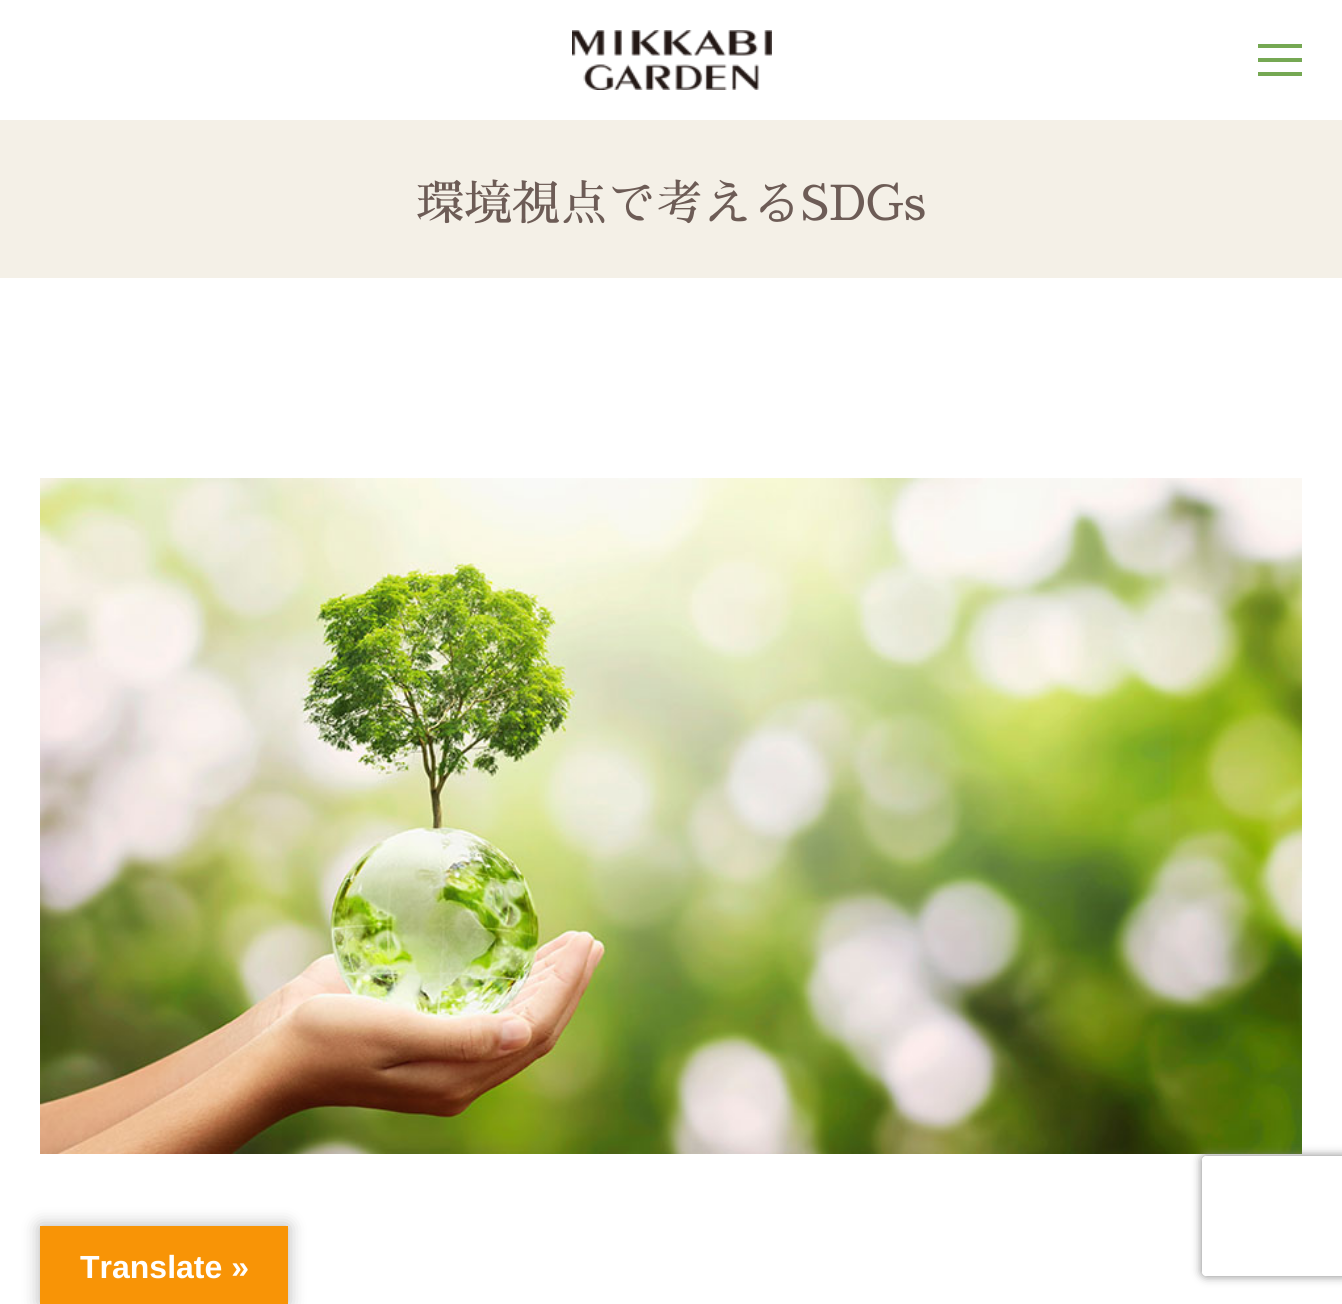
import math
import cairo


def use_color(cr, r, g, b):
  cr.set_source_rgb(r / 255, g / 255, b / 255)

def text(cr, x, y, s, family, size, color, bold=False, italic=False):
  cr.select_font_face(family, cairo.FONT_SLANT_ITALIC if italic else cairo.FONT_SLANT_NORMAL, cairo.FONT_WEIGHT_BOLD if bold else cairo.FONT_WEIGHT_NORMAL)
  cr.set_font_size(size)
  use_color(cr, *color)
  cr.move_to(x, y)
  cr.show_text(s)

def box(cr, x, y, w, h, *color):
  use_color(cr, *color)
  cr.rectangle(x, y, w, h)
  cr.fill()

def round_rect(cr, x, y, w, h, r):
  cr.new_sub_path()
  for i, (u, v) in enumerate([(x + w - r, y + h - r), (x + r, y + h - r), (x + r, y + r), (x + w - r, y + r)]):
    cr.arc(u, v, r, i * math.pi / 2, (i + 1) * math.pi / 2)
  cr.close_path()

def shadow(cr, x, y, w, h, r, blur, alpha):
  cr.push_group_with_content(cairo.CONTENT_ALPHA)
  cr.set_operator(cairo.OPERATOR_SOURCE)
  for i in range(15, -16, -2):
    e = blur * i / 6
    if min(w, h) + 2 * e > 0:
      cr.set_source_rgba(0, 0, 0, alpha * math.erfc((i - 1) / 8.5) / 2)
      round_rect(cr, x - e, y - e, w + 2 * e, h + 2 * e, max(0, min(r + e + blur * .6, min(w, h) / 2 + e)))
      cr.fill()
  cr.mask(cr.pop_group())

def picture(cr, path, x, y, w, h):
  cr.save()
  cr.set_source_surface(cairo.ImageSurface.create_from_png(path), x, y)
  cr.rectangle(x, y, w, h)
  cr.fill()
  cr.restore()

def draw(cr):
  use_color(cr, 255, 255, 255)
  cr.paint()
  picture(cr, "img_01.png", 572, 30, 200, 60)
  box(cr, 1258, 58, 44, 4, 117, 168, 83)
  box(cr, 1258, 44, 44, 4, 117, 168, 83)
  box(cr, 1258, 72, 44, 4, 117, 168, 83)
  box(cr, 0, 120, 1342, 158, 244, 240, 231)
  picture(cr, "img_02.png", 40, 478, 1262, 676)
  use_color(cr, 0, 0, 0)
  shadow(cr, 40, 1226, 248, 78, 0, 9, 0.3)
  box(cr, 40, 1226, 248, 78, 248, 148, 6)
  cr.save()
  cr.set_fill_rule(cairo.FILL_RULE_EVEN_ODD)
  cr.new_path()
  cr.move_to(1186, 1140)
  cr.line_to(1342, 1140)
  cr.line_to(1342, 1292)
  cr.line_to(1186, 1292)
  cr.close_path()
  cr.move_to(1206, 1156)
  cr.line_to(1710, 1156)
  cr.curve_to(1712, 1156, 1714, 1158, 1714, 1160)
  cr.line_to(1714, 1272)
  cr.curve_to(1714, 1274, 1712, 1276, 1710, 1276)
  cr.line_to(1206, 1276)
  cr.curve_to(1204, 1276, 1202, 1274, 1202, 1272)
  cr.line_to(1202, 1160)
  cr.curve_to(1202, 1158, 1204, 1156, 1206, 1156)
  cr.close_path()
  cr.clip()
  use_color(cr, 128, 128, 128)
  shadow(cr, 1202, 1156, 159, 120, 4, 5, 1)
  cr.restore()
  text(cr, 416, 220, "環境視点で考えるSDGs", "Sawarabi Mincho", 48, (109, 92, 86))
  text(cr, 80, 1278, "Translate »", "Liberation Sans", 32, (255, 255, 255), bold=True)


surface = cairo.ImageSurface(cairo.FORMAT_RGB24, 1342, 1304)
cr = cairo.Context(surface)
options = cairo.FontOptions()
options.set_hint_metrics(cairo.HINT_METRICS_OFF)
options.set_hint_style(cairo.HINT_STYLE_NONE)
cr.set_font_options(options)
cr.set_miter_limit(4)
draw(cr)
surface.write_to_png("out.png")
